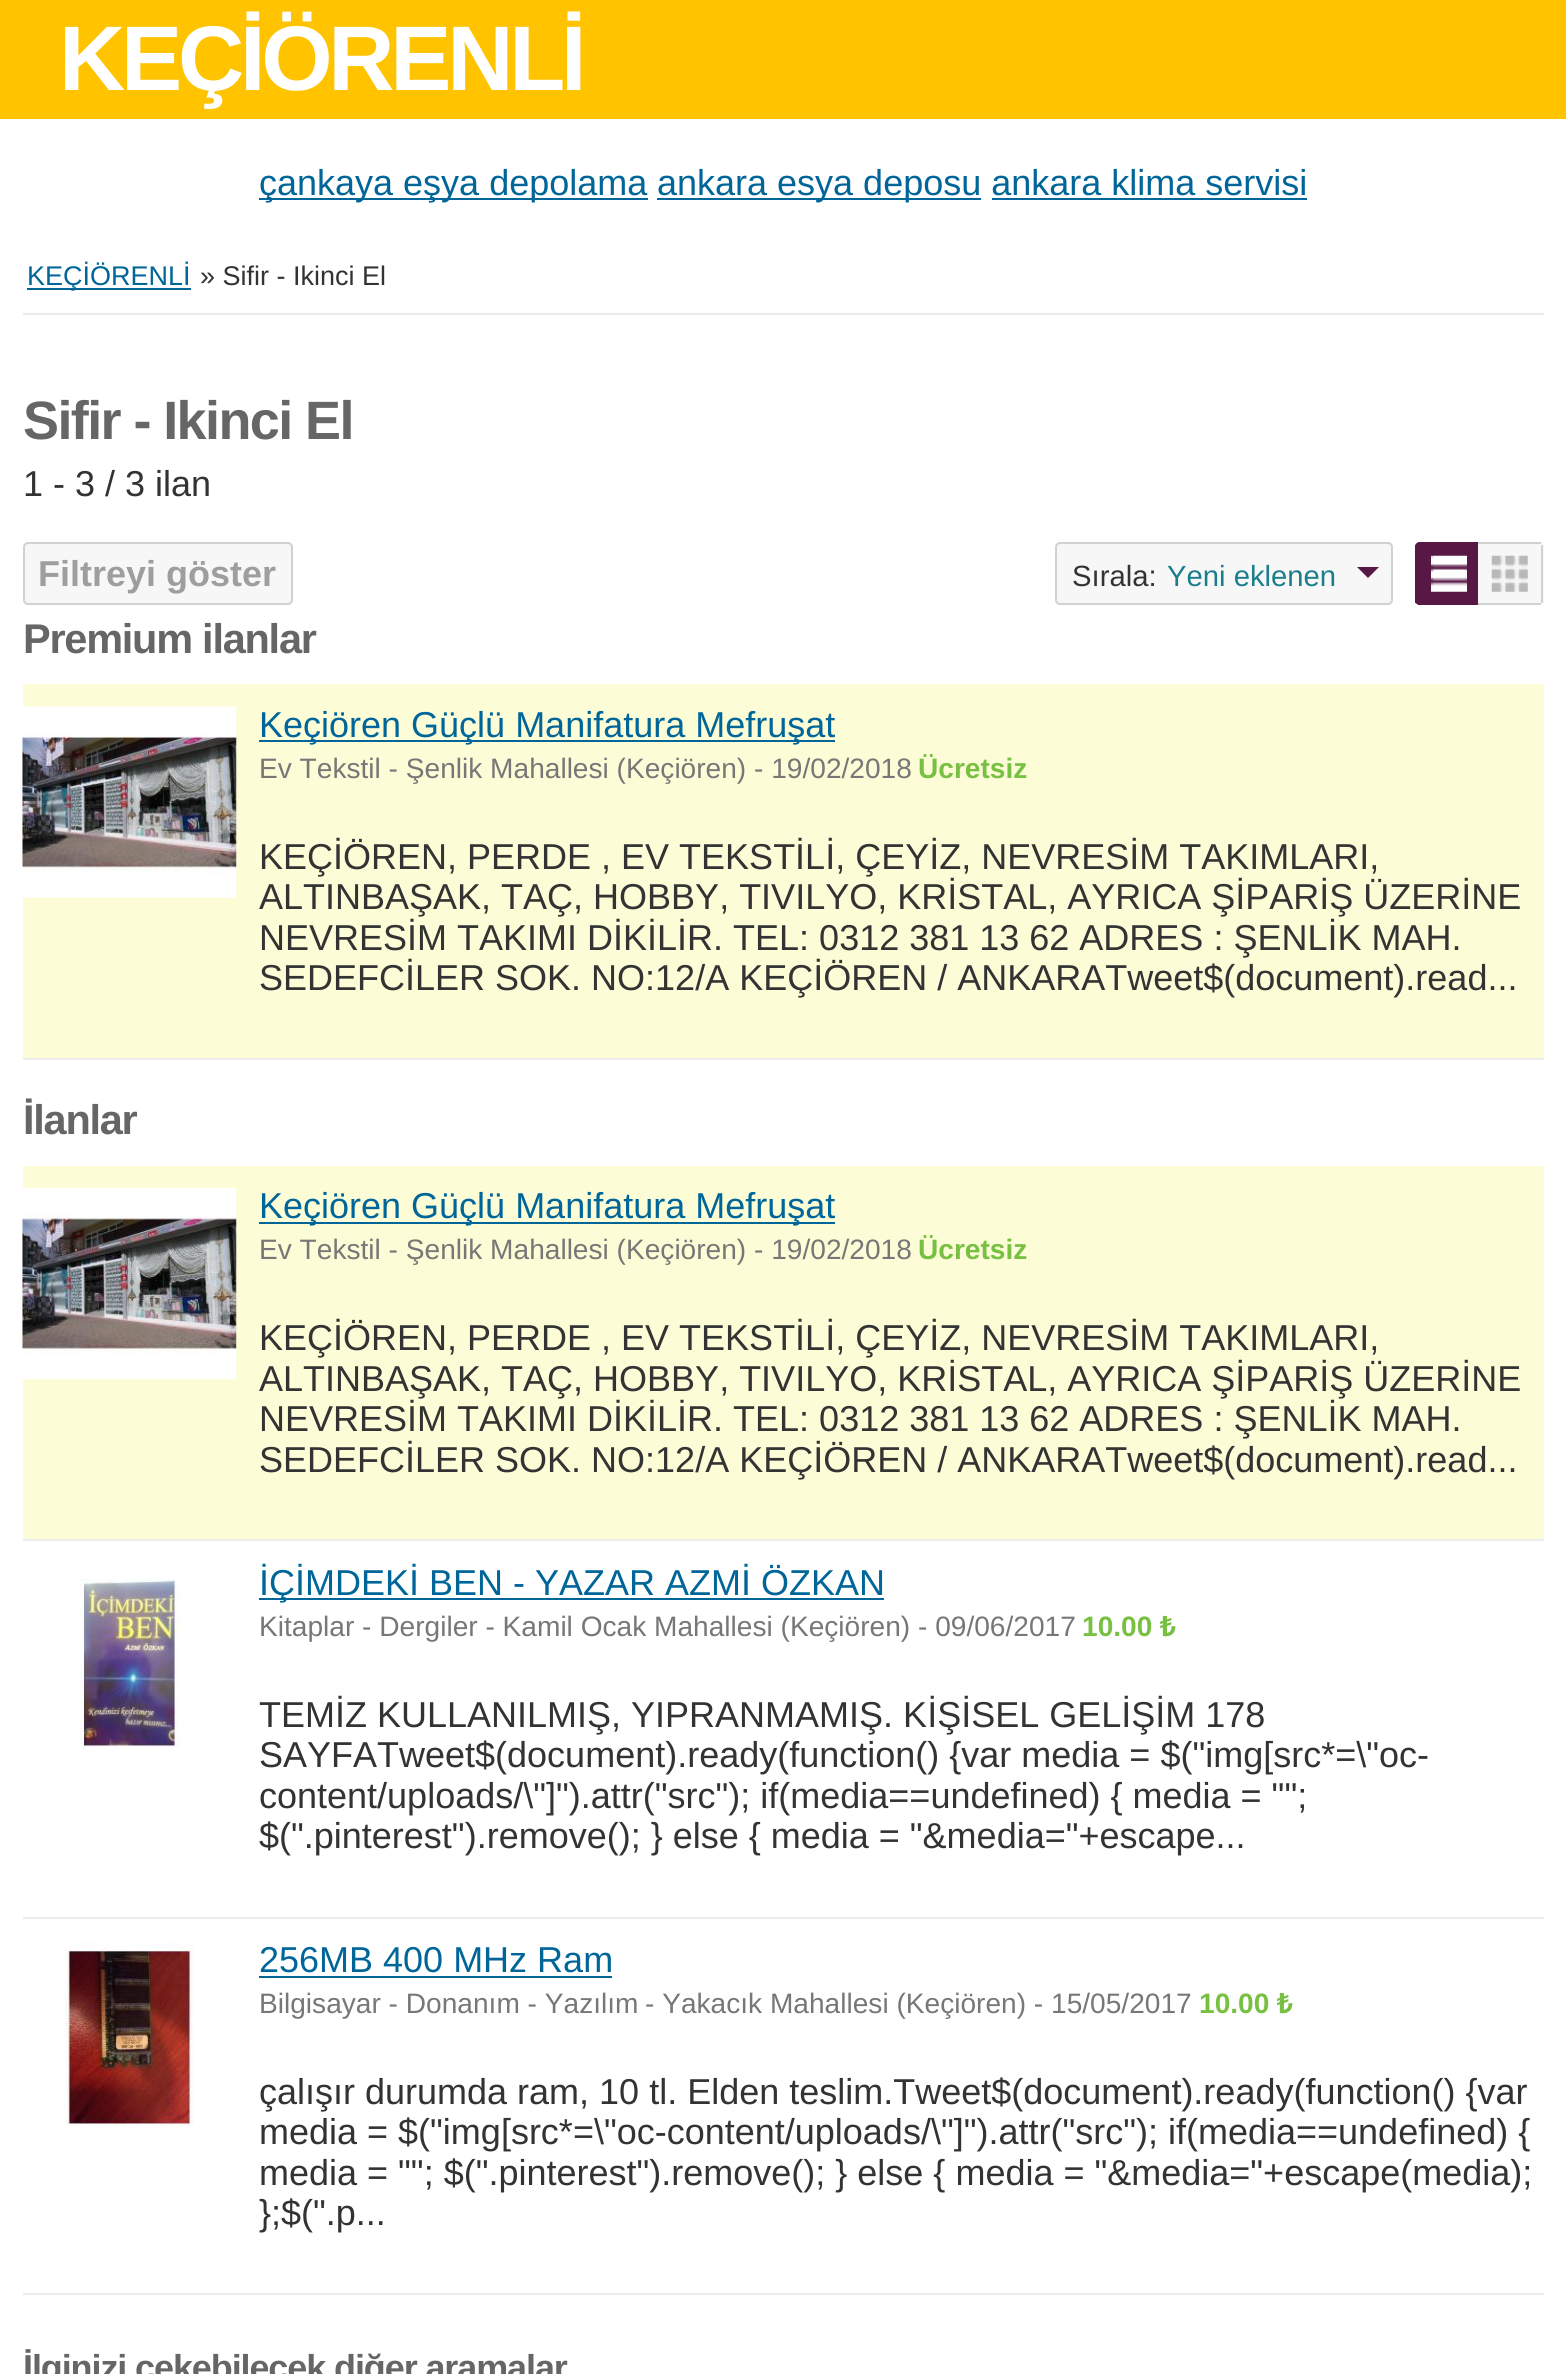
import math
import cairo


def use_color(cr, r, g, b):
  cr.set_source_rgb(r / 255, g / 255, b / 255)

def text(cr, x, y, s, family, size, color, bold=False, italic=False):
  cr.select_font_face(family, cairo.FONT_SLANT_ITALIC if italic else cairo.FONT_SLANT_NORMAL, cairo.FONT_WEIGHT_BOLD if bold else cairo.FONT_WEIGHT_NORMAL)
  cr.set_font_size(size)
  use_color(cr, *color)
  cr.move_to(x, y)
  cr.show_text(s)

def spaced_text(cr, x, y, s, letter, word):
  cr.move_to(x, y)
  for ch in s:
    cr.show_text(ch)
    cr.rel_move_to(letter + word * (ch == ' '), 0)

def box(cr, x, y, w, h, *color):
  use_color(cr, *color)
  cr.rectangle(x, y, w, h)
  cr.fill()

def round_rect(cr, x, y, w, h, r):
  cr.new_sub_path()
  for i, (u, v) in enumerate([(x + w - r, y + h - r), (x + r, y + h - r), (x + r, y + r), (x + w - r, y + r)]):
    cr.arc(u, v, r, i * math.pi / 2, (i + 1) * math.pi / 2)
  cr.close_path()

def picture(cr, path, x, y, w, h):
  cr.save()
  cr.set_source_surface(cairo.ImageSurface.create_from_png(path), x, y)
  cr.rectangle(x, y, w, h)
  cr.fill()
  cr.restore()

def draw(cr):
  use_color(cr, 255, 255, 255)
  cr.paint()
  box(cr, 0, 0, 1566, 119, 255, 195, 0)
  box(cr, 259, 198, 389, 2, 0, 102, 153)
  box(cr, 657, 198, 324, 2, 0, 102, 153)
  box(cr, 992, 198, 315, 2, 0, 102, 153)
  box(cr, 23, 313, 1521, 2, 234, 234, 234)
  box(cr, 27, 288, 164, 2, 0, 102, 153)
  use_color(cr, 247, 247, 247)
  round_rect(cr, 24, 543, 268, 61, 4)
  cr.fill_preserve()
  use_color(cr, 209, 209, 209)
  cr.stroke()
  use_color(cr, 247, 247, 247)
  round_rect(cr, 1056, 543, 336, 61, 4)
  cr.fill_preserve()
  use_color(cr, 209, 209, 209)
  cr.stroke()
  use_color(cr, 87, 24, 69)
  cr.new_path()
  cr.move_to(1357, 567)
  cr.line_to(1379, 567)
  cr.line_to(1368, 578)
  cr.close_path()
  cr.fill()
  cr.new_path()
  cr.move_to(1420, 542)
  cr.line_to(1481, 542)
  cr.line_to(1481, 605)
  cr.line_to(1420, 605)
  cr.curve_to(1417, 605, 1415, 603, 1415, 600)
  cr.line_to(1415, 547)
  cr.curve_to(1415, 544, 1417, 542, 1420, 542)
  cr.close_path()
  cr.fill()
  box(cr, 1418, 542, 2, 1, 87, 24, 70)
  box(cr, 1418, 604, 2, 1, 87, 24, 70)
  box(cr, 1415, 545, 1, 58, 87, 24, 70)
  picture(cr, "img_01.png", 1431, 555, 36, 37)
  use_color(cr, 247, 247, 247)
  cr.new_path()
  cr.move_to(1478, 542)
  cr.line_to(1539, 542)
  cr.curve_to(1542, 542, 1544, 544, 1544, 547)
  cr.line_to(1544, 600)
  cr.curve_to(1544, 603, 1542, 605, 1539, 605)
  cr.line_to(1478, 605)
  cr.close_path()
  cr.fill()
  box(cr, 1478, 542, 63, 2, 209, 209, 209)
  box(cr, 1541, 545, 2, 58, 209, 209, 209)
  box(cr, 1478, 603, 63, 2, 209, 209, 209)
  picture(cr, "img_02.png", 1491, 555, 37, 37)
  box(cr, 23, 684, 1521, 374, 252, 252, 215)
  box(cr, 23, 1058, 1521, 2, 236, 236, 236)
  picture(cr, "img_03.png", 22, 706, 215, 192)
  box(cr, 259, 740, 576, 2, 0, 102, 153)
  box(cr, 23, 1166, 1521, 373, 252, 252, 215)
  box(cr, 23, 1539, 1521, 2, 236, 236, 236)
  picture(cr, "img_04.png", 22, 1188, 215, 192)
  box(cr, 259, 1222, 576, 2, 0, 102, 153)
  box(cr, 23, 1917, 1521, 2, 236, 236, 236)
  picture(cr, "img_05.png", 79, 1579, 101, 169)
  box(cr, 259, 1598, 625, 2, 0, 102, 153)
  box(cr, 23, 2293, 1521, 2, 236, 236, 236)
  picture(cr, "img_06.png", 65, 1942, 129, 184)
  box(cr, 259, 1976, 353, 2, 0, 102, 153)
  cr.select_font_face("Liberation Sans", cairo.FONT_SLANT_NORMAL, cairo.FONT_WEIGHT_BOLD)
  cr.set_font_size(91.75)
  use_color(cr, 255, 255, 255)
  spaced_text(cr, 59, 90, "KEÇİÖRENLİ", -4.25, 0)
  text(cr, 259, 195, "çankaya eşya depolama", "Liberation Sans", 36, (0, 102, 153))
  text(cr, 657, 195, "ankara esya deposu ankara klima servisi", "Liberation Sans", 36, (0, 102, 153))
  text(cr, 27, 285, "KEÇİÖRENLİ", "Liberation Sans", 27, (0, 102, 153))
  text(cr, 200, 285, "» Sifir - Ikinci El", "Liberation Sans", 27, (51, 51, 51))
  cr.select_font_face("Liberation Sans", cairo.FONT_SLANT_NORMAL, cairo.FONT_WEIGHT_BOLD)
  cr.set_font_size(54)
  use_color(cr, 102, 102, 102)
  spaced_text(cr, 23, 439, "Sifir - Ikinci El", -1.6, 0)
  text(cr, 23, 496, "1 - 3 / 3 ilan", "Liberation Sans", 36, (51, 51, 51))
  text(cr, 38, 586, "Filtreyi göster", "Liberation Sans", 36, (158, 158, 158), bold=True)
  text(cr, 1072, 586, "Sırala:", "Liberation Sans", 29.25, (51, 51, 51))
  text(cr, 1167, 586, "Yeni eklenen", "Liberation Sans", 29.25, (27, 126, 141))
  cr.select_font_face("Liberation Sans", cairo.FONT_SLANT_NORMAL, cairo.FONT_WEIGHT_BOLD)
  cr.set_font_size(41.5)
  use_color(cr, 102, 102, 102)
  spaced_text(cr, 23, 653, "Premium ilanlar", -1.25, 0)
  text(cr, 259, 737, "Keçiören Güçlü Manifatura Mefruşat", "Liberation Sans", 36, (0, 102, 153))
  text(cr, 259, 778, "Ev Tekstil - Şenlik Mahallesi (Keçiören) - 19/02/2018", "Liberation Sans", 28.1, (119, 119, 119))
  text(cr, 918, 778, "Ücretsiz", "Liberation Sans", 28.1, (120, 192, 66), bold=True)
  text(cr, 259, 869, "KEÇİÖREN, PERDE , EV TEKSTİLİ, ÇEYİZ, NEVRESİM TAKIMLARI,", "Liberation Sans", 36, (51, 51, 51))
  text(cr, 259, 909, "ALTINBAŞAK, TAÇ, HOBBY, TIVILYO, KRİSTAL, AYRICA ŞİPARİŞ ÜZERİNE", "Liberation Sans", 36, (51, 51, 51))
  text(cr, 259, 950, "NEVRESİM TAKIMI DİKİLİR. TEL: 0312 381 13 62 ADRES : ŞENLİK MAH.", "Liberation Sans", 36, (51, 51, 51))
  text(cr, 259, 990, "SEDEFCİLER SOK. NO:12/A KEÇİÖREN / ANKARATweet$(document).read...", "Liberation Sans", 36, (51, 51, 51))
  cr.select_font_face("Liberation Sans", cairo.FONT_SLANT_NORMAL, cairo.FONT_WEIGHT_BOLD)
  cr.set_font_size(41.5)
  use_color(cr, 102, 102, 102)
  spaced_text(cr, 23, 1134, "İlanlar", -1.25, 0)
  text(cr, 259, 1218, "Keçiören Güçlü Manifatura Mefruşat", "Liberation Sans", 36, (0, 102, 153))
  text(cr, 259, 1259, "Ev Tekstil - Şenlik Mahallesi (Keçiören) - 19/02/2018", "Liberation Sans", 28.1, (119, 119, 119))
  text(cr, 918, 1259, "Ücretsiz", "Liberation Sans", 28.1, (120, 192, 66), bold=True)
  text(cr, 259, 1350, "KEÇİÖREN, PERDE , EV TEKSTİLİ, ÇEYİZ, NEVRESİM TAKIMLARI,", "Liberation Sans", 36, (51, 51, 51))
  text(cr, 259, 1391, "ALTINBAŞAK, TAÇ, HOBBY, TIVILYO, KRİSTAL, AYRICA ŞİPARİŞ ÜZERİNE", "Liberation Sans", 36, (51, 51, 51))
  text(cr, 259, 1431, "NEVRESİM TAKIMI DİKİLİR. TEL: 0312 381 13 62 ADRES : ŞENLİK MAH.", "Liberation Sans", 36, (51, 51, 51))
  text(cr, 259, 1472, "SEDEFCİLER SOK. NO:12/A KEÇİÖREN / ANKARATweet$(document).read...", "Liberation Sans", 36, (51, 51, 51))
  text(cr, 259, 1595, "İÇİMDEKİ BEN - YAZAR AZMİ ÖZKAN", "Liberation Sans", 36, (0, 102, 153))
  text(cr, 259, 1636, "Kitaplar - Dergiler - Kamil Ocak Mahallesi (Keçiören) - 09/06/2017", "Liberation Sans", 28.1, (119, 119, 119))
  text(cr, 1082, 1636, "10.00", "Liberation Sans", 28.1, (120, 192, 66), bold=True)
  text(cr, 1160, 1636, "₺", "Noto Sans", 28.1, (120, 192, 66), bold=True)
  text(cr, 259, 1727, "TEMİZ KULLANILMIŞ, YIPRANMAMIŞ. KİŞİSEL GELİŞİM 178", "Liberation Sans", 36, (51, 51, 51))
  text(cr, 259, 1767, "SAYFATweet$(document).ready(function() {var media = $(\"img[src*=\\\"oc-", "Liberation Sans", 36, (51, 51, 51))
  text(cr, 259, 1808, "content/uploads/\\\"]\").attr(\"src\"); if(media==undefined) { media = \"\";", "Liberation Sans", 36, (51, 51, 51))
  text(cr, 259, 1848, "$(\".pinterest\").remove(); } else { media = \"&media=\"+escape...", "Liberation Sans", 36, (51, 51, 51))
  text(cr, 259, 1972, "256MB 400 MHz Ram", "Liberation Sans", 36, (0, 102, 153))
  text(cr, 259, 2013, "Bilgisayar - Donanım - Yazılım", "Liberation Sans", 28.1, (119, 119, 119))
  text(cr, 645, 2013, "- Yakacık Mahallesi (Keçiören) - 15/05/2017", "Liberation Sans", 28.1, (119, 119, 119))
  text(cr, 1199, 2013, "10.00", "Liberation Sans", 28.1, (120, 192, 66), bold=True)
  text(cr, 1277, 2013, "₺", "Noto Sans", 28.1, (120, 192, 66), bold=True)
  text(cr, 259, 2104, "çalışır durumda ram, 10 tl. Elden teslim.Tweet$(document).ready(function() {var", "Liberation Sans", 36, (51, 51, 51))
  text(cr, 259, 2144, "media = $(\"img[src*=\\\"oc-content/uploads/\\\"]\").attr(\"src\"); if(media==undefined) {", "Liberation Sans", 36, (51, 51, 51))
  text(cr, 259, 2185, "media = \"\"; $(\".pinterest\").remove(); } else { media = \"&media=\"+escape(media);", "Liberation Sans", 36, (51, 51, 51))
  text(cr, 259, 2225, "};$(\".p...", "Liberation Sans", 36, (51, 51, 51))
  cr.select_font_face("Liberation Sans", cairo.FONT_SLANT_NORMAL, cairo.FONT_WEIGHT_BOLD)
  use_color(cr, 102, 102, 102)
  spaced_text(cr, 23, 2380, "İlginizi çekebilecek diğer aramalar", -1.1, 0)


surface = cairo.ImageSurface(cairo.FORMAT_RGB24, 1566, 2374)
cr = cairo.Context(surface)
options = cairo.FontOptions()
options.set_hint_metrics(cairo.HINT_METRICS_OFF)
options.set_hint_style(cairo.HINT_STYLE_NONE)
cr.set_font_options(options)
cr.set_miter_limit(4)
draw(cr)
surface.write_to_png("out.png")
